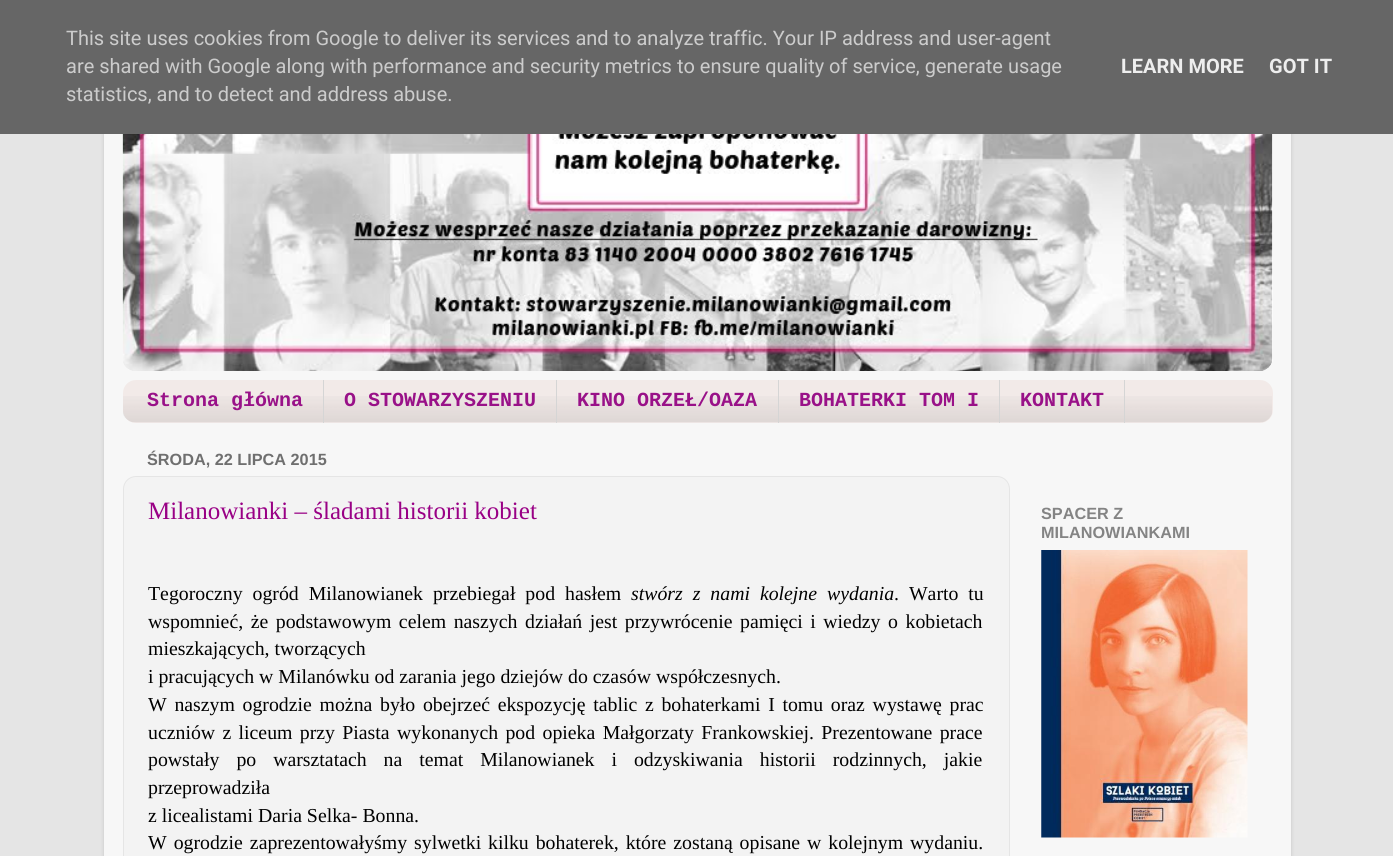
import math
import cairo


def use_color(cr, r, g, b):
  cr.set_source_rgb(r / 255, g / 255, b / 255)

def text(cr, x, y, s, family, size, color, bold=False, italic=False):
  cr.select_font_face(family, cairo.FONT_SLANT_ITALIC if italic else cairo.FONT_SLANT_NORMAL, cairo.FONT_WEIGHT_BOLD if bold else cairo.FONT_WEIGHT_NORMAL)
  cr.set_font_size(size)
  use_color(cr, *color)
  cr.move_to(x, y)
  cr.show_text(s)

def spaced_text(cr, x, y, s, letter, word):
  cr.move_to(x, y)
  for ch in s:
    cr.show_text(ch)
    cr.rel_move_to(letter + word * (ch == ' '), 0)

def box(cr, x, y, w, h, *color):
  use_color(cr, *color)
  cr.rectangle(x, y, w, h)
  cr.fill()

def round_rect(cr, x, y, w, h, r):
  cr.new_sub_path()
  for i, (u, v) in enumerate([(x + w - r, y + h - r), (x + r, y + h - r), (x + r, y + r), (x + w - r, y + r)]):
    cr.arc(u, v, r, i * math.pi / 2, (i + 1) * math.pi / 2)
  cr.close_path()

def shadow(cr, x, y, w, h, r, blur, alpha):
  cr.push_group_with_content(cairo.CONTENT_ALPHA)
  cr.set_operator(cairo.OPERATOR_SOURCE)
  for i in range(15, -16, -2):
    e = blur * i / 6
    if min(w, h) + 2 * e > 0:
      cr.set_source_rgba(0, 0, 0, alpha * math.erfc((i - 1) / 8.5) / 2)
      round_rect(cr, x - e, y - e, w + 2 * e, h + 2 * e, max(0, min(r + e + blur * .6, min(w, h) / 2 + e)))
      cr.fill()
  cr.mask(cr.pop_group())

def picture(cr, path, x, y, w, h):
  cr.save()
  cr.set_source_surface(cairo.ImageSurface.create_from_png(path), x, y)
  cr.rectangle(x, y, w, h)
  cr.fill()
  cr.restore()

def draw(cr):
  use_color(cr, 229, 229, 229)
  cr.paint()
  use_color(cr, 0, 0, 0)
  shadow(cr, 104, -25, 1187, 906, 19, 2, 0.15)
  box(cr, 104, 134, 1187, 722, 247, 247, 247)
  use_color(cr, 255, 255, 255)
  round_rect(cr, 123, -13, 1150, 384, 13)
  cr.fill()
  box(cr, 0, 0, 1393, 134, 102, 102, 102)
  picture(cr, "img_01.png", 122, 134, 1151, 237)
  use_color(cr, 242, 234, 232)
  round_rect(cr, 123, 380, 1150, 43, 13)
  cr.fill()
  picture(cr, "img_02.png", 123, 396, 1149, 27)
  box(cr, 323, 380, 1, 43, 213, 213, 213)
  box(cr, 556, 380, 1, 43, 213, 213, 213)
  box(cr, 778, 380, 1, 43, 213, 213, 213)
  box(cr, 999, 380, 1, 43, 213, 213, 213)
  box(cr, 1124, 380, 1, 43, 213, 213, 213)
  use_color(cr, 243, 243, 243)
  round_rect(cr, 123.5, 476.5, 886, 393, 12.5)
  cr.fill_preserve()
  use_color(cr, 229, 229, 229)
  cr.set_line_width(1)
  cr.stroke()
  picture(cr, "img_03.png", 1041, 550, 207, 288)
  text(cr, 66, 45, "This site uses cookies from Google to deliver its services and to analyze traffic. Your IP address and user-agent", "Roboto", 20, (204, 204, 204))
  text(cr, 66, 73, "are shared with Google along with performance and security metrics to ensure quality of service, generate usage", "Roboto", 20, (204, 204, 204))
  text(cr, 66, 101, "statistics, and to detect and address abuse.", "Roboto", 20, (204, 204, 204))
  text(cr, 1121, 73, "LEARN MORE", "Roboto", 20, (238, 238, 238), bold=True)
  text(cr, 1269, 73, "GOT IT", "Roboto", 20, (238, 238, 238), bold=True)
  text(cr, 147, 406, "Strona główna", "Liberation Mono", 20, (153, 17, 136), bold=True)
  text(cr, 344, 406, "O STOWARZYSZENIU", "Liberation Mono", 20, (153, 17, 136), bold=True)
  text(cr, 577, 406, "KINO ORZEŁ/OAZA", "Liberation Mono", 20, (153, 17, 136), bold=True)
  text(cr, 799, 406, "BOHATERKI TOM I", "Liberation Mono", 20, (153, 17, 136), bold=True)
  text(cr, 1020, 406, "KONTAKT", "Liberation Mono", 20, (153, 17, 136), bold=True)
  text(cr, 147, 465, "ŚRODA, 22 LIPCA 2015", "Liberation Sans", 16.25, (111, 111, 111), bold=True)
  text(cr, 148, 519, "Milanowianki – śladami historii kobiet", "Liberation Serif", 25, (153, 0, 133))
  cr.set_font_size(19.8)
  use_color(cr, 0, 0, 0)
  spaced_text(cr, 148, 600, "Tegoroczny ogród Milanowianek przebiegał pod hasłem", 0, 5)
  cr.select_font_face("Liberation Serif", cairo.FONT_SLANT_ITALIC)
  spaced_text(cr, 631, 600, "stwórz z nami kolejne wydania", 0, 5)
  cr.select_font_face("Liberation Serif")
  spaced_text(cr, 894, 600, ". Warto tu", 0, 5)
  spaced_text(cr, 148, 628, "wspomnieć, że podstawowym celem naszych działań jest przywrócenie pamięci i wiedzy o kobietach", 0, 2.6)
  text(cr, 148, 655, "mieszkających, tworzących", "Liberation Serif", 19.8, (0, 0, 0))
  text(cr, 148, 683, "i pracujących w Milanówku od zarania jego dziejów do czasów współczesnych.", "Liberation Serif", 19.8, (0, 0, 0))
  spaced_text(cr, 148, 711, "W naszym ogrodzie można było obejrzeć ekspozycję tablic z bohaterkami I tomu oraz wystawę prac", 0, 2.75)
  spaced_text(cr, 148, 739, "uczniów z liceum przy Piasta wykonanych pod opieka Małgorzaty Frankowskiej. Prezentowane prace", 0, 2.4)
  spaced_text(cr, 148, 766, "powstały po warsztatach na temat Milanowianek i odzyskiwania historii rodzinnych, jakie", 0, 12)
  text(cr, 148, 794, "przeprowadziła", "Liberation Serif", 19.8, (0, 0, 0))
  text(cr, 148, 822, "z licealistami Daria Selka- Bonna.", "Liberation Serif", 19.8, (0, 0, 0))
  spaced_text(cr, 148, 849, "W ogrodzie zaprezentowałyśmy sylwetki kilku bohaterek, które zostaną opisane w kolejnym wydaniu.", 0, 2)
  text(cr, 1041, 519, "SPACER Z", "Liberation Sans", 16.25, (132, 132, 132), bold=True)
  text(cr, 1041, 538, "MILANOWIANKAMI", "Liberation Sans", 16.25, (132, 132, 132), bold=True)


surface = cairo.ImageSurface(cairo.FORMAT_RGB24, 1393, 856)
cr = cairo.Context(surface)
options = cairo.FontOptions()
options.set_hint_metrics(cairo.HINT_METRICS_OFF)
options.set_hint_style(cairo.HINT_STYLE_NONE)
cr.set_font_options(options)
cr.set_miter_limit(4)
draw(cr)
surface.write_to_png("out.png")
